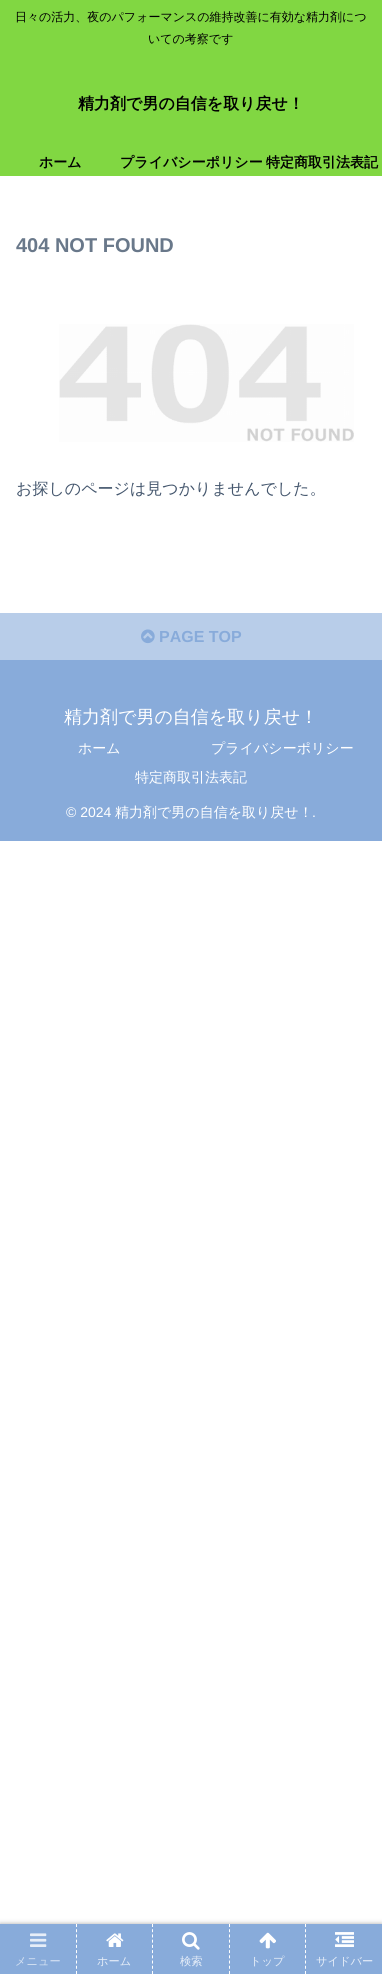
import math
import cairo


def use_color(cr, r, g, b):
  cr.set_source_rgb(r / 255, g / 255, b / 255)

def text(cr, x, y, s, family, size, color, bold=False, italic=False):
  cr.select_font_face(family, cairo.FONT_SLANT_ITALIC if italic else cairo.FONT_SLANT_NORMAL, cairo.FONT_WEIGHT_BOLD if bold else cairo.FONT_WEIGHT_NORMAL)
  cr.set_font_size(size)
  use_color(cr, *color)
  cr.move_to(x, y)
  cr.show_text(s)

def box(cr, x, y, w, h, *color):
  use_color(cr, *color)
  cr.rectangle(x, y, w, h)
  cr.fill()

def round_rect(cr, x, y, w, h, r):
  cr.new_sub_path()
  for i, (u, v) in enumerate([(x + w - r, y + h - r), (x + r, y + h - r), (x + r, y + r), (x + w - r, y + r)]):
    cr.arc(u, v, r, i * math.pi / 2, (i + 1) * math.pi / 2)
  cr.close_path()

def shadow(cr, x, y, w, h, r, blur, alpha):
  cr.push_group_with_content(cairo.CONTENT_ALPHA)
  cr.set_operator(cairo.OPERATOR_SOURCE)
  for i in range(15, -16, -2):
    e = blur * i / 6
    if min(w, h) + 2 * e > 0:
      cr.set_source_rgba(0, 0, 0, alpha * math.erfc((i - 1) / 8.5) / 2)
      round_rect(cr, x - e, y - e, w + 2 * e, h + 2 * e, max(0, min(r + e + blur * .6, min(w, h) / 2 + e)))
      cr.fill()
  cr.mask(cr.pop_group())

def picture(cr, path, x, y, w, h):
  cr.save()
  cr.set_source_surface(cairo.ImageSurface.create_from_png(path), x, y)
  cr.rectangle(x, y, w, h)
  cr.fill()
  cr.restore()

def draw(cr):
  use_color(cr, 255, 255, 255)
  cr.paint()
  box(cr, 0, 0, 382, 176, 129, 215, 66)
  picture(cr, "img_01.png", 59, 324, 295, 118)
  box(cr, 0, 613, 382, 47, 184, 205, 233)
  picture(cr, "img_02.png", 141, 629, 14, 15)
  box(cr, 0, 660, 382, 181, 136, 171, 218)
  use_color(cr, 169, 169, 169)
  shadow(cr, 0, 1924, 382, 50, 0, 2.5, 1)
  box(cr, 0, 1924, 382, 50, 136, 171, 218)
  cr.new_path()
  cr.move_to(76.5, 1924)
  cr.line_to(76.5, 1974)
  use_color(cr, 255, 255, 255)
  cr.set_line_width(1)
  cr.set_dash([3, 2.22])
  cr.stroke()
  picture(cr, "img_03.png", 30, 1933, 17, 14)
  cr.new_path()
  cr.move_to(152.5, 1924)
  cr.line_to(152.5, 1974)
  cr.stroke()
  picture(cr, "img_04.png", 106, 1933, 18, 14)
  cr.new_path()
  cr.move_to(229.5, 1924)
  cr.line_to(229.5, 1974)
  cr.stroke()
  picture(cr, "img_05.png", 182, 1932, 18, 18)
  cr.new_path()
  cr.move_to(305.5, 1924)
  cr.line_to(305.5, 1974)
  cr.stroke()
  picture(cr, "img_06.png", 259, 1932, 17, 17)
  picture(cr, "img_07.png", 335, 1932, 19, 15)
  text(cr, 15, 21, "日々の活力、夜のパフォーマンスの維持改善に有効な精力剤につ", "WenQuanYi Zen Hei Medium", 12, (0, 0, 0))
  text(cr, 148, 43, "いての考察です", "WenQuanYi Zen Hei Medium", 12, (0, 0, 0))
  text(cr, 78, 109, "精力剤で男の自信を取り戻せ！", "WenQuanYi Zen Hei", 16, (0, 0, 0), bold=True)
  text(cr, 39, 167, "ホーム", "WenQuanYi Zen Hei", 14, (0, 0, 0), bold=True)
  text(cr, 120, 167, "プライバシーポリシー", "WenQuanYi Zen Hei", 14, (0, 0, 0), bold=True)
  text(cr, 266, 167, "特定商取引法表記", "WenQuanYi Zen Hei", 14, (0, 0, 0), bold=True)
  text(cr, 16, 252, "404 NOT FOUND", "Liberation Sans", 20, (105, 120, 138), bold=True)
  text(cr, 16, 494, "お探しのページは見つかりませんでした。", "WenQuanYi Zen Hei Medium", 16, (68, 86, 109))
  text(cr, 159, 642, "PAGE TOP", "Liberation Sans", 16, (136, 171, 218), bold=True)
  text(cr, 64, 723, "精力剤で男の自信を取り戻せ！", "WenQuanYi Zen Hei Medium", 18, (255, 255, 255))
  text(cr, 78, 753, "ホーム", "WenQuanYi Zen Hei Medium", 14, (255, 255, 255))
  text(cr, 211, 753, "プライバシーポリシー", "WenQuanYi Zen Hei Medium", 14, (255, 255, 255))
  text(cr, 135, 782, "特定商取引法表記", "WenQuanYi Zen Hei Medium", 14, (255, 255, 255))
  text(cr, 66, 817, "© 2024", "Liberation Sans", 14, (255, 255, 255))
  text(cr, 115, 817, "精力剤で男の自信を取り戻せ！", "WenQuanYi Zen Hei Medium", 14, (255, 255, 255))
  text(cr, 312, 817, ".", "Liberation Sans", 14, (255, 255, 255))
  text(cr, 15, 1965, "メニュー", "WenQuanYi Zen Hei Medium", 11.25, (212, 225, 242))
  text(cr, 97, 1965, "ホーム", "WenQuanYi Zen Hei Medium", 11.25, (231, 238, 248))
  text(cr, 180, 1965, "検索", "WenQuanYi Zen Hei Medium", 11.25, (231, 238, 248))
  text(cr, 250, 1965, "トップ", "WenQuanYi Zen Hei Medium", 11.25, (231, 238, 248))
  text(cr, 316, 1965, "サイドバー", "WenQuanYi Zen Hei Medium", 11.25, (231, 238, 248))


surface = cairo.ImageSurface(cairo.FORMAT_RGB24, 382, 1974)
cr = cairo.Context(surface)
options = cairo.FontOptions()
options.set_hint_metrics(cairo.HINT_METRICS_OFF)
options.set_hint_style(cairo.HINT_STYLE_NONE)
cr.set_font_options(options)
cr.set_miter_limit(4)
draw(cr)
surface.write_to_png("out.png")
